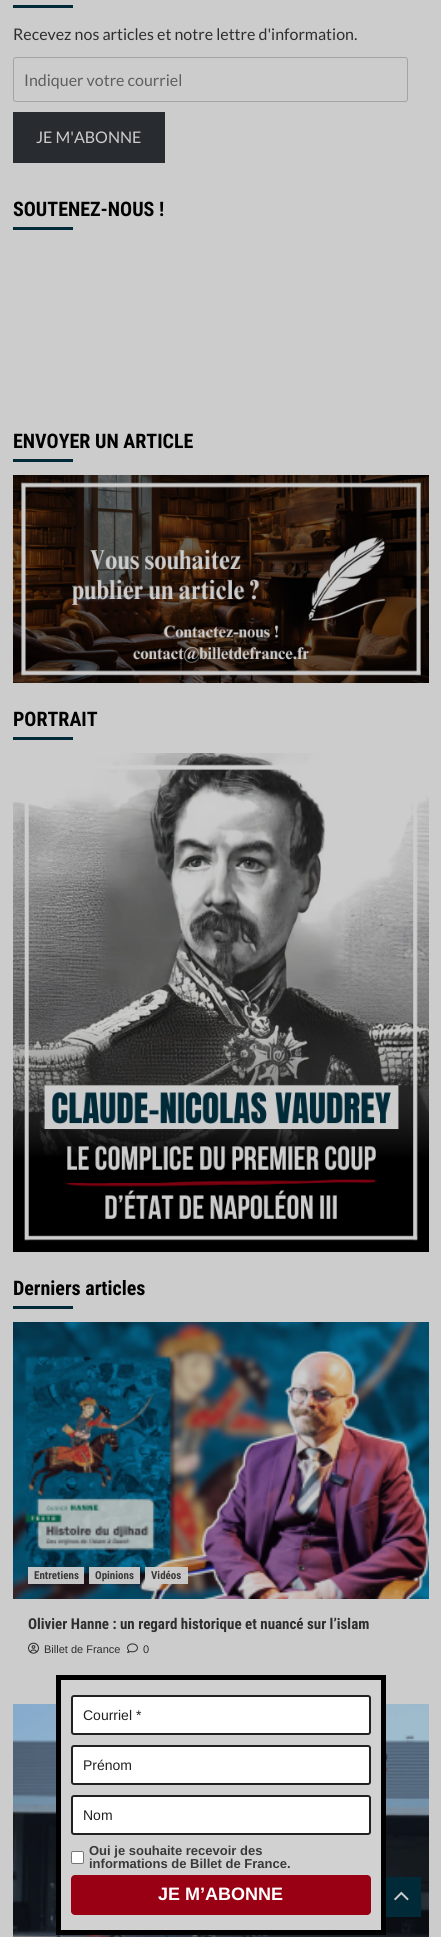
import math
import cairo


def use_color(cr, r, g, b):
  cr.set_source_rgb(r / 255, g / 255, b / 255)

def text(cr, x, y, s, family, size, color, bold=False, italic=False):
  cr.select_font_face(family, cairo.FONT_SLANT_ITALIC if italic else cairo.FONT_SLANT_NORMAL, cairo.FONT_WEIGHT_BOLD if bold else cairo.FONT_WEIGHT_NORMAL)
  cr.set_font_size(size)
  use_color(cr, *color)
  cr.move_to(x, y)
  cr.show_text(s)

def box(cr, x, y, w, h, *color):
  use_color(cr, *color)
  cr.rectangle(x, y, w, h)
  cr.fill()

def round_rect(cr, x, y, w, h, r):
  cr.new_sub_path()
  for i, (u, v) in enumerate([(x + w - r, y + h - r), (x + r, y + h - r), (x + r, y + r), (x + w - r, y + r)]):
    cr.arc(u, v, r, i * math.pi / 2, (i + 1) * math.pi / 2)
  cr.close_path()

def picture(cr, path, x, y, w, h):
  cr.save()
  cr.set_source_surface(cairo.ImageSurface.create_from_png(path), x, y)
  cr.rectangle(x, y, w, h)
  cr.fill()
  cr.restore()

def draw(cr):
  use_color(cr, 204, 204, 204)
  cr.paint()
  box(cr, 13, 5, 60, 3, 0, 42, 56)
  round_rect(cr, 13.5, 57.5, 394, 44, 2.5)
  use_color(cr, 163, 163, 163)
  cr.set_line_width(1)
  cr.stroke()
  box(cr, 13, 112, 152, 51, 40, 44, 48)
  box(cr, 13, 227, 60, 3, 0, 42, 56)
  box(cr, 13, 459, 60, 3, 0, 42, 56)
  picture(cr, "img_01.png", 13, 475, 416, 208)
  box(cr, 13, 737, 60, 3, 0, 42, 56)
  picture(cr, "img_02.png", 13, 753, 416, 499)
  box(cr, 13, 1306, 60, 3, 0, 42, 56)
  picture(cr, "img_03.png", 13, 1322, 416, 277)
  cr.set_source_rgba(0.8, 0.8, 0.8, 0.96)
  cr.rectangle(28, 1567, 56, 17)
  cr.fill()
  cr.rectangle(89, 1567, 51, 17)
  cr.fill()
  cr.rectangle(145, 1567, 43, 17)
  cr.fill()
  picture(cr, "img_04.png", 28, 1642, 11, 12)
  picture(cr, "img_05.png", 127, 1643, 11, 10)
  picture(cr, "img_06.png", 13, 1704, 416, 233)
  cr.rectangle(58.5, 1677.5, 325, 255)
  use_color(cr, 0, 0, 0)
  cr.set_line_width(5)
  cr.stroke()
  box(cr, 61, 1680, 320, 250, 209, 209, 209)
  use_color(cr, 255, 255, 255)
  round_rect(cr, 72, 1696, 298, 38, 2)
  cr.fill_preserve()
  use_color(cr, 33, 33, 33)
  cr.set_line_width(2)
  cr.stroke()
  use_color(cr, 255, 255, 255)
  round_rect(cr, 72, 1746, 298, 38, 2)
  cr.fill_preserve()
  use_color(cr, 33, 33, 33)
  cr.stroke()
  use_color(cr, 255, 255, 255)
  round_rect(cr, 72, 1796, 298, 38, 2)
  cr.fill_preserve()
  use_color(cr, 33, 33, 33)
  cr.stroke()
  use_color(cr, 255, 255, 255)
  round_rect(cr, 71.5, 1851.5, 12, 12, 1.5)
  cr.fill_preserve()
  use_color(cr, 118, 118, 118)
  cr.set_line_width(1)
  cr.stroke()
  use_color(cr, 154, 0, 20)
  round_rect(cr, 71, 1875, 300, 40, 4)
  cr.fill()
  box(cr, 386, 1877, 35, 40, 0, 42, 56)
  picture(cr, "img_07.png", 394, 1891, 15, 10)
  text(cr, 13, 40, "Recevez nos articles et notre lettre d'information.", "Lato", 16, (46, 46, 46))
  text(cr, 24, 86, "Indiquer votre courriel", "Lato", 16, (94, 94, 94))
  text(cr, 36, 143, "JE M'ABONNE", "Lato", 16, (204, 204, 204))
  text(cr, 13, 216, "SOUTENEZ-NOUS !", "Roboto Condensed", 20, (0, 0, 0), bold=True)
  text(cr, 13, 448, "ENVOYER UN ARTICLE", "Roboto Condensed", 20, (0, 0, 0), bold=True)
  text(cr, 13, 726, "PORTRAIT", "Roboto Condensed", 20, (0, 0, 0), bold=True)
  text(cr, 13, 1295, "Derniers articles", "Roboto Condensed", 20, (0, 0, 0), bold=True)
  text(cr, 34, 1579, "Entretiens", "Roboto Condensed", 11, (57, 57, 57), bold=True)
  text(cr, 95, 1579, "Opinions", "Roboto Condensed", 11, (57, 57, 57), bold=True)
  text(cr, 151, 1579, "Vidéos", "Roboto Condensed", 11, (57, 57, 57), bold=True)
  text(cr, 28, 1629, "Olivier Hanne : un regard historique et nuancé sur l’islam", "Roboto Condensed", 15, (46, 46, 46), bold=True)
  text(cr, 44, 1653, "Billet de France", "Liberation Sans", 11, (46, 46, 46))
  text(cr, 143, 1653, "0", "Liberation Sans", 11, (46, 46, 46))
  text(cr, 83, 1720, "Courriel *", "Liberation Sans", 14, (33, 33, 33))
  text(cr, 83, 1770, "Prénom", "Liberation Sans", 14, (33, 33, 33))
  text(cr, 83, 1820, "Nom", "Liberation Sans", 14, (33, 33, 33))
  text(cr, 89, 1855, "Oui je souhaite recevoir des", "Liberation Sans", 13, (57, 57, 57), bold=True)
  text(cr, 89, 1868, "informations de Billet de France.", "Liberation Sans", 13, (57, 57, 57), bold=True)
  text(cr, 158, 1900, "JE M’ABONNE", "Liberation Sans", 18, (255, 255, 255), bold=True)


surface = cairo.ImageSurface(cairo.FORMAT_RGB24, 441, 1937)
cr = cairo.Context(surface)
options = cairo.FontOptions()
options.set_hint_metrics(cairo.HINT_METRICS_OFF)
options.set_hint_style(cairo.HINT_STYLE_NONE)
cr.set_font_options(options)
cr.set_miter_limit(4)
draw(cr)
surface.write_to_png("out.png")
